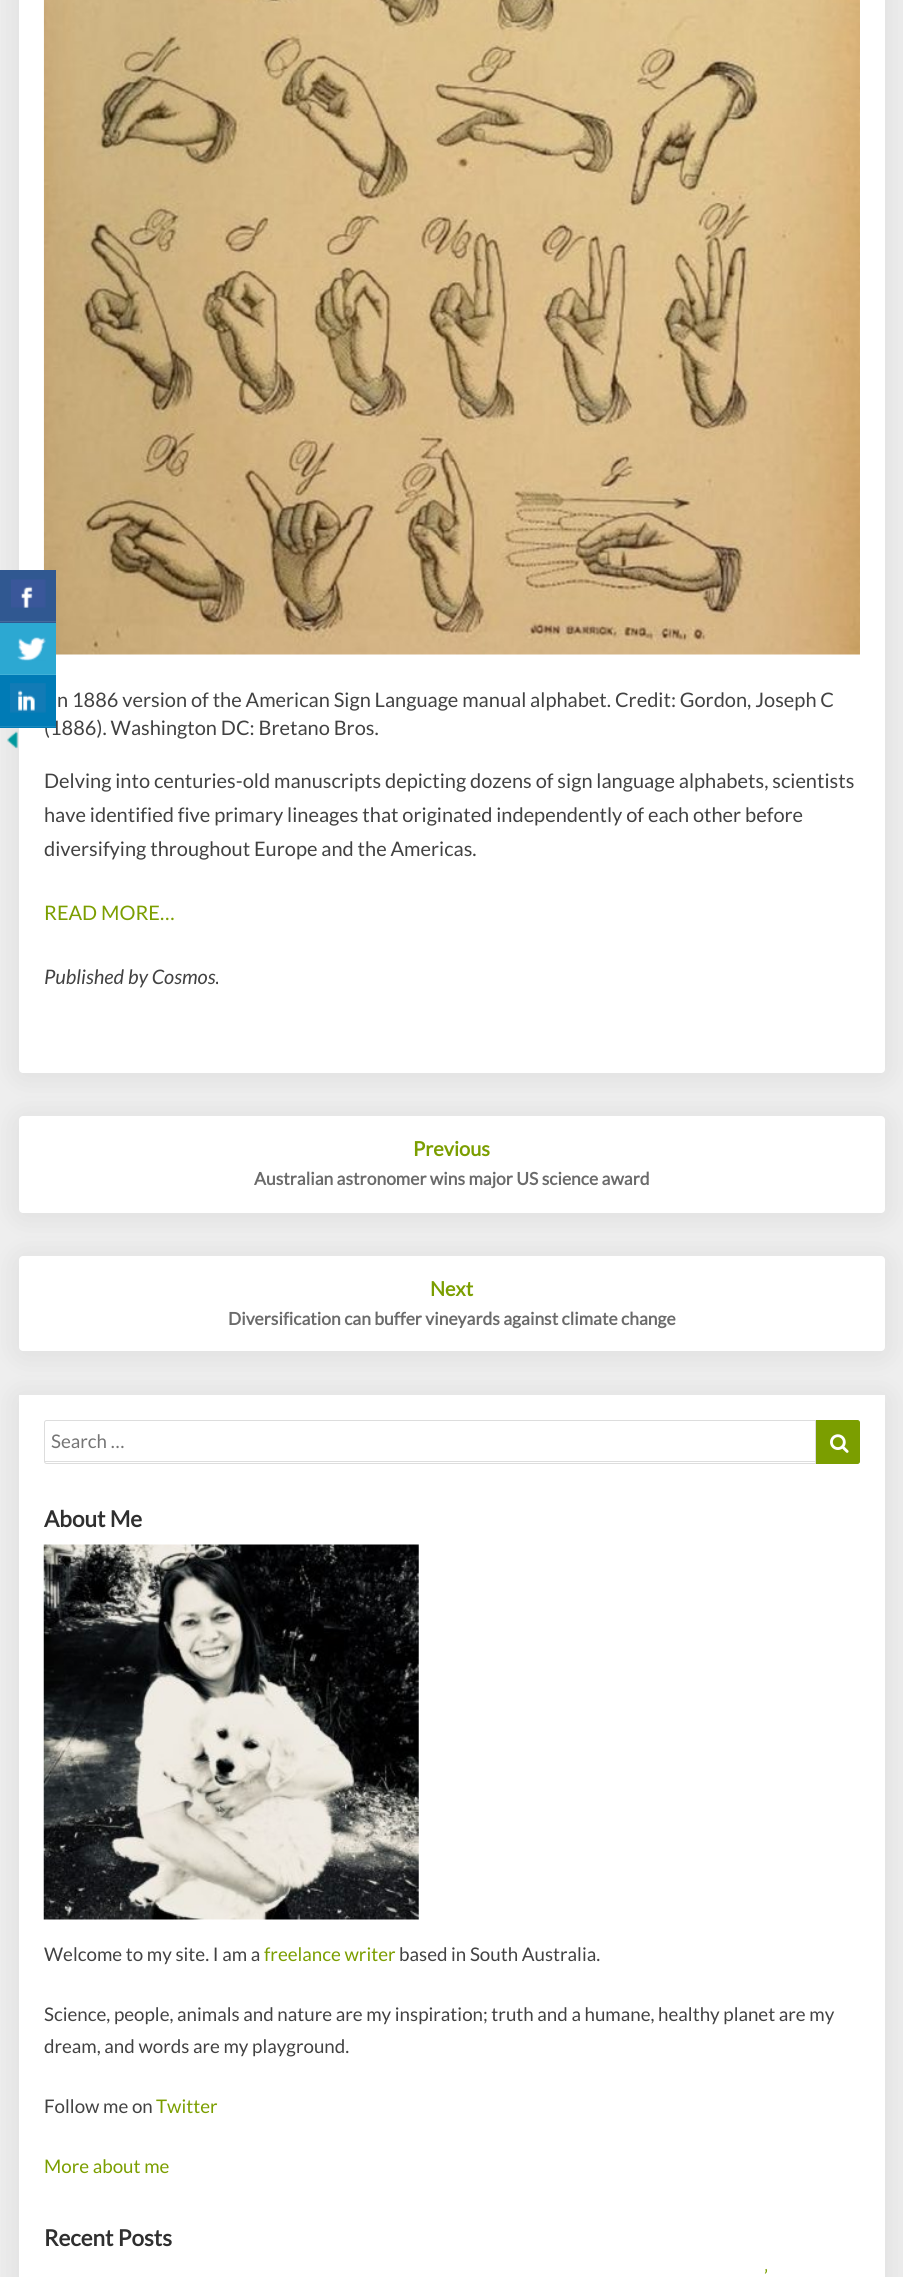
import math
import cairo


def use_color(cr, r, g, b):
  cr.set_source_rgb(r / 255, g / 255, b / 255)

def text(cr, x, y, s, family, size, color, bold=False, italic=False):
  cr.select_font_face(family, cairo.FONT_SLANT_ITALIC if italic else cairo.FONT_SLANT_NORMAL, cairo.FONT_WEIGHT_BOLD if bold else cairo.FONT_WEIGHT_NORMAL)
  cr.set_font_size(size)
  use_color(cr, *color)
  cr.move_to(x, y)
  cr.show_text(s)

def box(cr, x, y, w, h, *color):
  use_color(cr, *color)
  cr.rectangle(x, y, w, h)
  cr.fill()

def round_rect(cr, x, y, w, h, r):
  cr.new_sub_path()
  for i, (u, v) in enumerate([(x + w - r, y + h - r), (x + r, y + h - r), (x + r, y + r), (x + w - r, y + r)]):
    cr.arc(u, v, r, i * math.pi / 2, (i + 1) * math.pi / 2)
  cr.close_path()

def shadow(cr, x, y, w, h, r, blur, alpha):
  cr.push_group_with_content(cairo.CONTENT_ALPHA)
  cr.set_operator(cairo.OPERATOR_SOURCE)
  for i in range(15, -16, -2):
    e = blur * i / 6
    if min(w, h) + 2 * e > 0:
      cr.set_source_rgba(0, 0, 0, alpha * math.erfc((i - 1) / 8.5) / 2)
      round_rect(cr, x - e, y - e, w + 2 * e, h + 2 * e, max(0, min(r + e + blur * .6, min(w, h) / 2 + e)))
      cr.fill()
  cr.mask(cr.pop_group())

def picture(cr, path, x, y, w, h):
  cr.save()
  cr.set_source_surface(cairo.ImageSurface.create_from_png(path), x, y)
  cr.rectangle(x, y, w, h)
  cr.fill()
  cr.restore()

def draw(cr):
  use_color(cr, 238, 238, 238)
  cr.paint()
  use_color(cr, 0, 0, 0)
  shadow(cr, 19, -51, 866, 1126, 4, 15.5, 0.08)
  use_color(cr, 255, 255, 255)
  round_rect(cr, 19, -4, 866, 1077, 4)
  cr.fill()
  picture(cr, "img_05.png", 43, 0, 817, 655)
  box(cr, 0, 570, 56, 53, 48, 88, 145)
  box(cr, 0, 621, 56, 1, 69, 105, 156)
  picture(cr, "img_01.png", 11, 579, 35, 29)
  box(cr, 0, 623, 56, 51, 44, 168, 210)
  box(cr, 0, 674, 56, 1, 65, 177, 215)
  picture(cr, "img_02.png", 17, 637, 29, 24)
  picture(cr, "img_04.png", 7, 731, 11, 18)
  use_color(cr, 0, 0, 0)
  shadow(cr, 19, 1119, 866, 96, 4, 15.5, 0.08)
  use_color(cr, 255, 255, 255)
  round_rect(cr, 19, 1116, 866, 97, 4)
  cr.fill()
  use_color(cr, 0, 0, 0)
  shadow(cr, 19, 1259, 866, 95, 4, 15.5, 0.08)
  use_color(cr, 255, 255, 255)
  round_rect(cr, 19, 1256, 866, 95, 4)
  cr.fill()
  use_color(cr, 0, 0, 0)
  shadow(cr, 19, 1398, 866, 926, 0, 15.5, 0.08)
  box(cr, 19, 1395, 866, 882, 255, 255, 255)
  cr.new_path()
  cr.move_to(46.5, 1420.5)
  cr.line_to(815.5, 1420.5)
  cr.line_to(815.5, 1463.5)
  cr.line_to(46.5, 1463.5)
  cr.curve_to(45.5, 1463.5, 44.5, 1462.5, 44.5, 1461.5)
  cr.line_to(44.5, 1422.5)
  cr.curve_to(44.5, 1421.5, 45.5, 1420.5, 46.5, 1420.5)
  cr.close_path()
  use_color(cr, 221, 221, 221)
  cr.set_line_width(1)
  cr.stroke()
  box(cr, 45, 1461, 771, 1, 221, 221, 221)
  use_color(cr, 123, 158, 0)
  cr.new_path()
  cr.move_to(816.5, 1420.5)
  cr.line_to(857.5, 1420.5)
  cr.curve_to(858.5, 1420.5, 859.5, 1421.5, 859.5, 1422.5)
  cr.line_to(859.5, 1461.5)
  cr.curve_to(859.5, 1462.5, 858.5, 1463.5, 857.5, 1463.5)
  cr.line_to(816.5, 1463.5)
  cr.close_path()
  cr.fill_preserve()
  cr.stroke()
  picture(cr, "img_06.png", 830, 1434, 19, 19)
  picture(cr, "img_07.png", 43, 1544, 376, 376)
  text(cr, 57, 707, "n 1886 version of the American Sign Language manual alphabet. Credit: Gordon, Joseph C", "Lato", 20, (66, 66, 66))
  text(cr, 44, 735, "(1886). Washington DC: Bretano Bros.", "Lato", 20, (66, 66, 66))
  box(cr, 0, 675, 56, 53, 0, 123, 182)
  picture(cr, "img_03.png", 10, 683, 36, 30)
  box(cr, 0, 726, 56, 1, 26, 136, 189)
  text(cr, 44, 788, "Delving into centuries-old manuscripts depicting dozens of sign language alphabets, scientists", "Lato", 20, (66, 66, 66))
  text(cr, 44, 822, "have identified five primary lineages that originated independently of each other before", "Lato", 20, (66, 66, 66))
  text(cr, 44, 856, "diversifying throughout Europe and the Americas.", "Lato", 20, (66, 66, 66))
  text(cr, 44, 920, "READ MORE…", "Lato", 20, (123, 158, 0))
  text(cr, 44, 984, "Published by Cosmos.", "Lato", 20, (66, 66, 66), italic=True)
  text(cr, 413, 1156, "Previous", "Lato", 20, (123, 158, 0), bold=True)
  text(cr, 254, 1185, "Australian astronomer wins major US science award", "Lato", 17.5, (107, 107, 107), bold=True)
  text(cr, 430, 1296, "Next", "Lato", 20, (123, 158, 0), bold=True)
  text(cr, 228, 1325, "Diversification can buffer vineyards against climate change", "Lato", 17.5, (107, 107, 107), bold=True)
  text(cr, 51, 1448, "Search …", "Lato", 18.75, (117, 117, 117))
  text(cr, 44, 1527, "About Me", "Lato", 22.5, (47, 47, 47), bold=True)
  text(cr, 44, 1961, "Welcome to my site. I am a", "Lato", 18.75, (66, 66, 66))
  text(cr, 264, 1961, "freelance writer", "Lato", 18.75, (123, 158, 0))
  text(cr, 399, 1961, "based in South Australia.", "Lato", 18.75, (66, 66, 66))
  text(cr, 44, 2021, "Science, people, animals and nature are my inspiration; truth and a humane, healthy planet are my", "Lato", 18.75, (66, 66, 66))
  text(cr, 44, 2053, "dream, and words are my playground.", "Lato", 18.75, (66, 66, 66))
  text(cr, 44, 2113, "Follow me on", "Lato", 18.75, (66, 66, 66))
  text(cr, 156, 2113, "Twitter", "Lato", 18.75, (123, 158, 0))
  text(cr, 44, 2173, "More about me", "Lato", 18.75, (123, 158, 0))
  text(cr, 44, 2246, "Recent Posts", "Lato", 22.5, (47, 47, 47), bold=True)
  text(cr, 764, 2283, "’", "Lato", 18.75, (123, 158, 0))


surface = cairo.ImageSurface(cairo.FORMAT_RGB24, 903, 2277)
cr = cairo.Context(surface)
options = cairo.FontOptions()
options.set_hint_metrics(cairo.HINT_METRICS_OFF)
options.set_hint_style(cairo.HINT_STYLE_NONE)
cr.set_font_options(options)
cr.set_miter_limit(4)
draw(cr)
surface.write_to_png("out.png")
